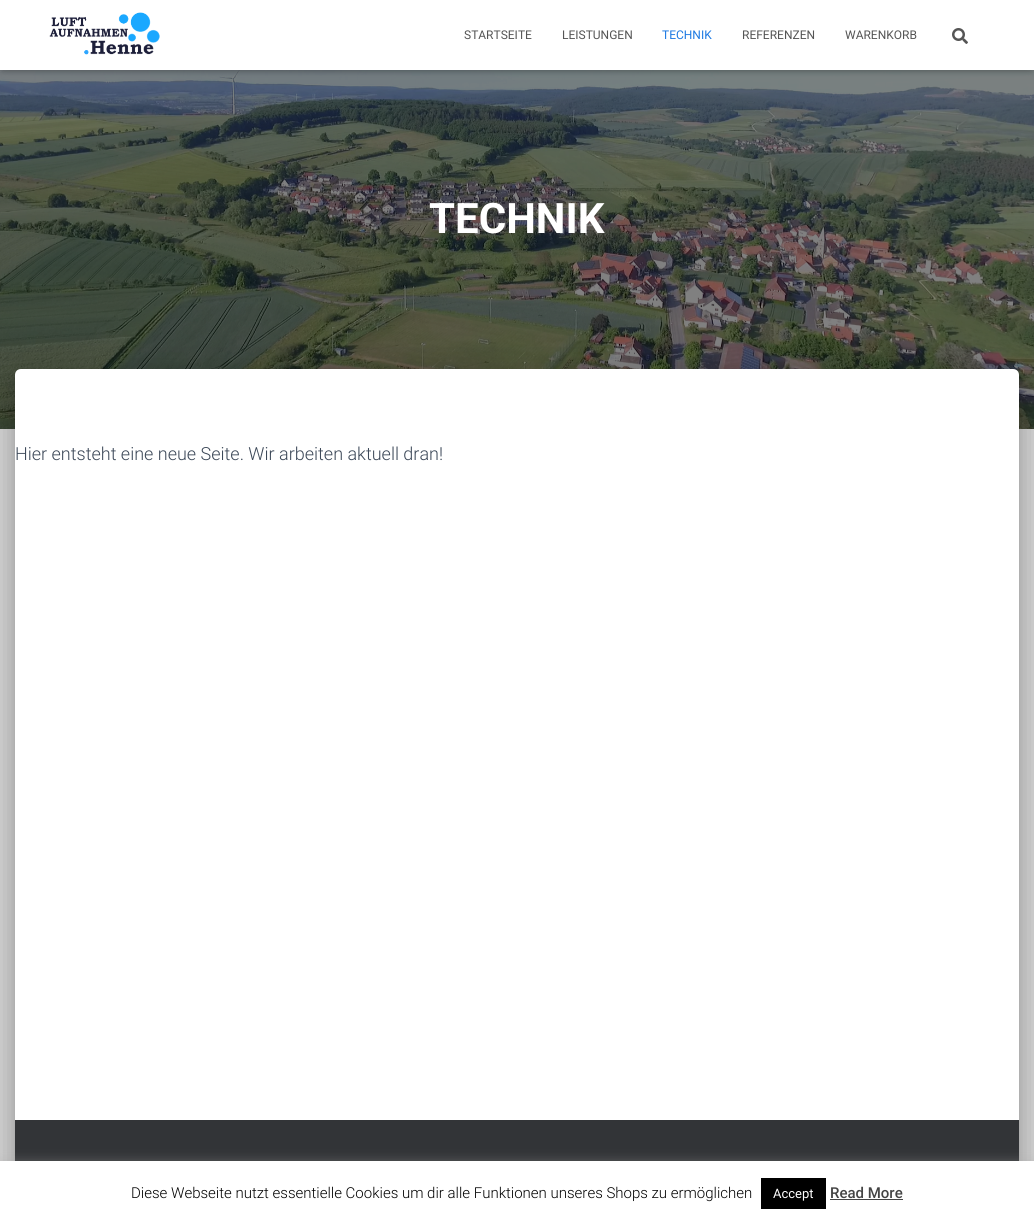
import math
import cairo


def use_color(cr, r, g, b):
  cr.set_source_rgb(r / 255, g / 255, b / 255)

def text(cr, x, y, s, family, size, color, bold=False, italic=False):
  cr.select_font_face(family, cairo.FONT_SLANT_ITALIC if italic else cairo.FONT_SLANT_NORMAL, cairo.FONT_WEIGHT_BOLD if bold else cairo.FONT_WEIGHT_NORMAL)
  cr.set_font_size(size)
  use_color(cr, *color)
  cr.move_to(x, y)
  cr.show_text(s)

def box(cr, x, y, w, h, *color):
  use_color(cr, *color)
  cr.rectangle(x, y, w, h)
  cr.fill()

def round_rect(cr, x, y, w, h, r):
  cr.new_sub_path()
  for i, (u, v) in enumerate([(x + w - r, y + h - r), (x + r, y + h - r), (x + r, y + r), (x + w - r, y + r)]):
    cr.arc(u, v, r, i * math.pi / 2, (i + 1) * math.pi / 2)
  cr.close_path()

def shadow(cr, x, y, w, h, r, blur, alpha):
  cr.push_group_with_content(cairo.CONTENT_ALPHA)
  cr.set_operator(cairo.OPERATOR_SOURCE)
  for i in range(15, -16, -2):
    e = blur * i / 6
    if min(w, h) + 2 * e > 0:
      cr.set_source_rgba(0, 0, 0, alpha * math.erfc((i - 1) / 8.5) / 2)
      round_rect(cr, x - e, y - e, w + 2 * e, h + 2 * e, max(0, min(r + e + blur * .6, min(w, h) / 2 + e)))
      cr.fill()
  cr.mask(cr.pop_group())

def picture(cr, path, x, y, w, h):
  cr.save()
  cr.set_source_surface(cairo.ImageSurface.create_from_png(path), x, y)
  cr.rectangle(x, y, w, h)
  cr.fill()
  cr.restore()

def draw(cr):
  use_color(cr, 211, 211, 211)
  cr.paint()
  picture(cr, "img_03.png", 0, 70, 1034, 359)
  use_color(cr, 0, 0, 0)
  shadow(cr, 2, 6, 1030, 66, 0, 2.5, 0.1)
  shadow(cr, 0, 1, 1034, 70, 0, 5, 0.12)
  shadow(cr, 6, 7, 1022, 58, 0, 5, 0.42)
  box(cr, 0, 0, 1034, 70, 255, 255, 255)
  picture(cr, "img_01.png", 49, 12, 111, 43)
  picture(cr, "img_02.png", 952, 28, 16, 16)
  use_color(cr, 0, 0, 0)
  shadow(cr, 20, 382, 994, 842, 1, 5, 0.2)
  shadow(cr, 10, 370, 1014, 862, 11, 15, 0.12)
  shadow(cr, 13, 383, 1008, 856, 8, 12, 0.14)
  use_color(cr, 255, 255, 255)
  cr.new_path()
  cr.move_to(21, 369)
  cr.line_to(1013, 369)
  cr.curve_to(1016.5, 369, 1019, 371.5, 1019, 375)
  cr.line_to(1019, 1221)
  cr.line_to(15, 1221)
  cr.line_to(15, 375)
  cr.curve_to(15, 371.5, 17.5, 369, 21, 369)
  cr.close_path()
  cr.fill()
  box(cr, 15, 1120, 1004, 41, 50, 52, 55)
  use_color(cr, 172, 171, 171)
  shadow(cr, 0, 1160, 1034, 60, 0, 5, 0.3)
  box(cr, 0, 1161, 1034, 60, 255, 255, 255)
  box(cr, 761, 1178, 65, 31, 0, 0, 0)
  box(cr, 830, 1199, 73, 1, 68, 68, 68)
  text(cr, 464, 39, "STARTSEITE", "Roboto", 12, (85, 85, 85))
  text(cr, 562, 39, "LEISTUNGEN", "Roboto", 12, (85, 85, 85))
  text(cr, 662, 39, "TECHNIK", "Roboto", 12, (29, 121, 226))
  text(cr, 742, 39, "REFERENZEN", "Roboto", 12, (85, 85, 85))
  text(cr, 845, 39, "WARENKORB", "Roboto", 12, (85, 85, 85))
  text(cr, 429, 233, "TECHNIK", "Roboto", 42, (255, 255, 255), bold=True)
  text(cr, 15, 460, "Hier entsteht eine neue Seite. Wir arbeiten aktuell dran!", "Roboto Light", 18, (60, 72, 88))
  text(cr, 131, 1198, "Diese Webseite nutzt essentielle Cookies um dir alle Funktionen unseres Shops zu ermöglichen", "Roboto Light", 15, (0, 0, 0))
  text(cr, 773, 1198, "Accept", "Roboto", 13, (255, 255, 255))
  text(cr, 830, 1198, "Read More", "Roboto Medium", 15, (68, 68, 68))


surface = cairo.ImageSurface(cairo.FORMAT_RGB24, 1034, 1221)
cr = cairo.Context(surface)
options = cairo.FontOptions()
options.set_hint_metrics(cairo.HINT_METRICS_OFF)
options.set_hint_style(cairo.HINT_STYLE_NONE)
cr.set_font_options(options)
cr.set_miter_limit(4)
draw(cr)
surface.write_to_png("out.png")
